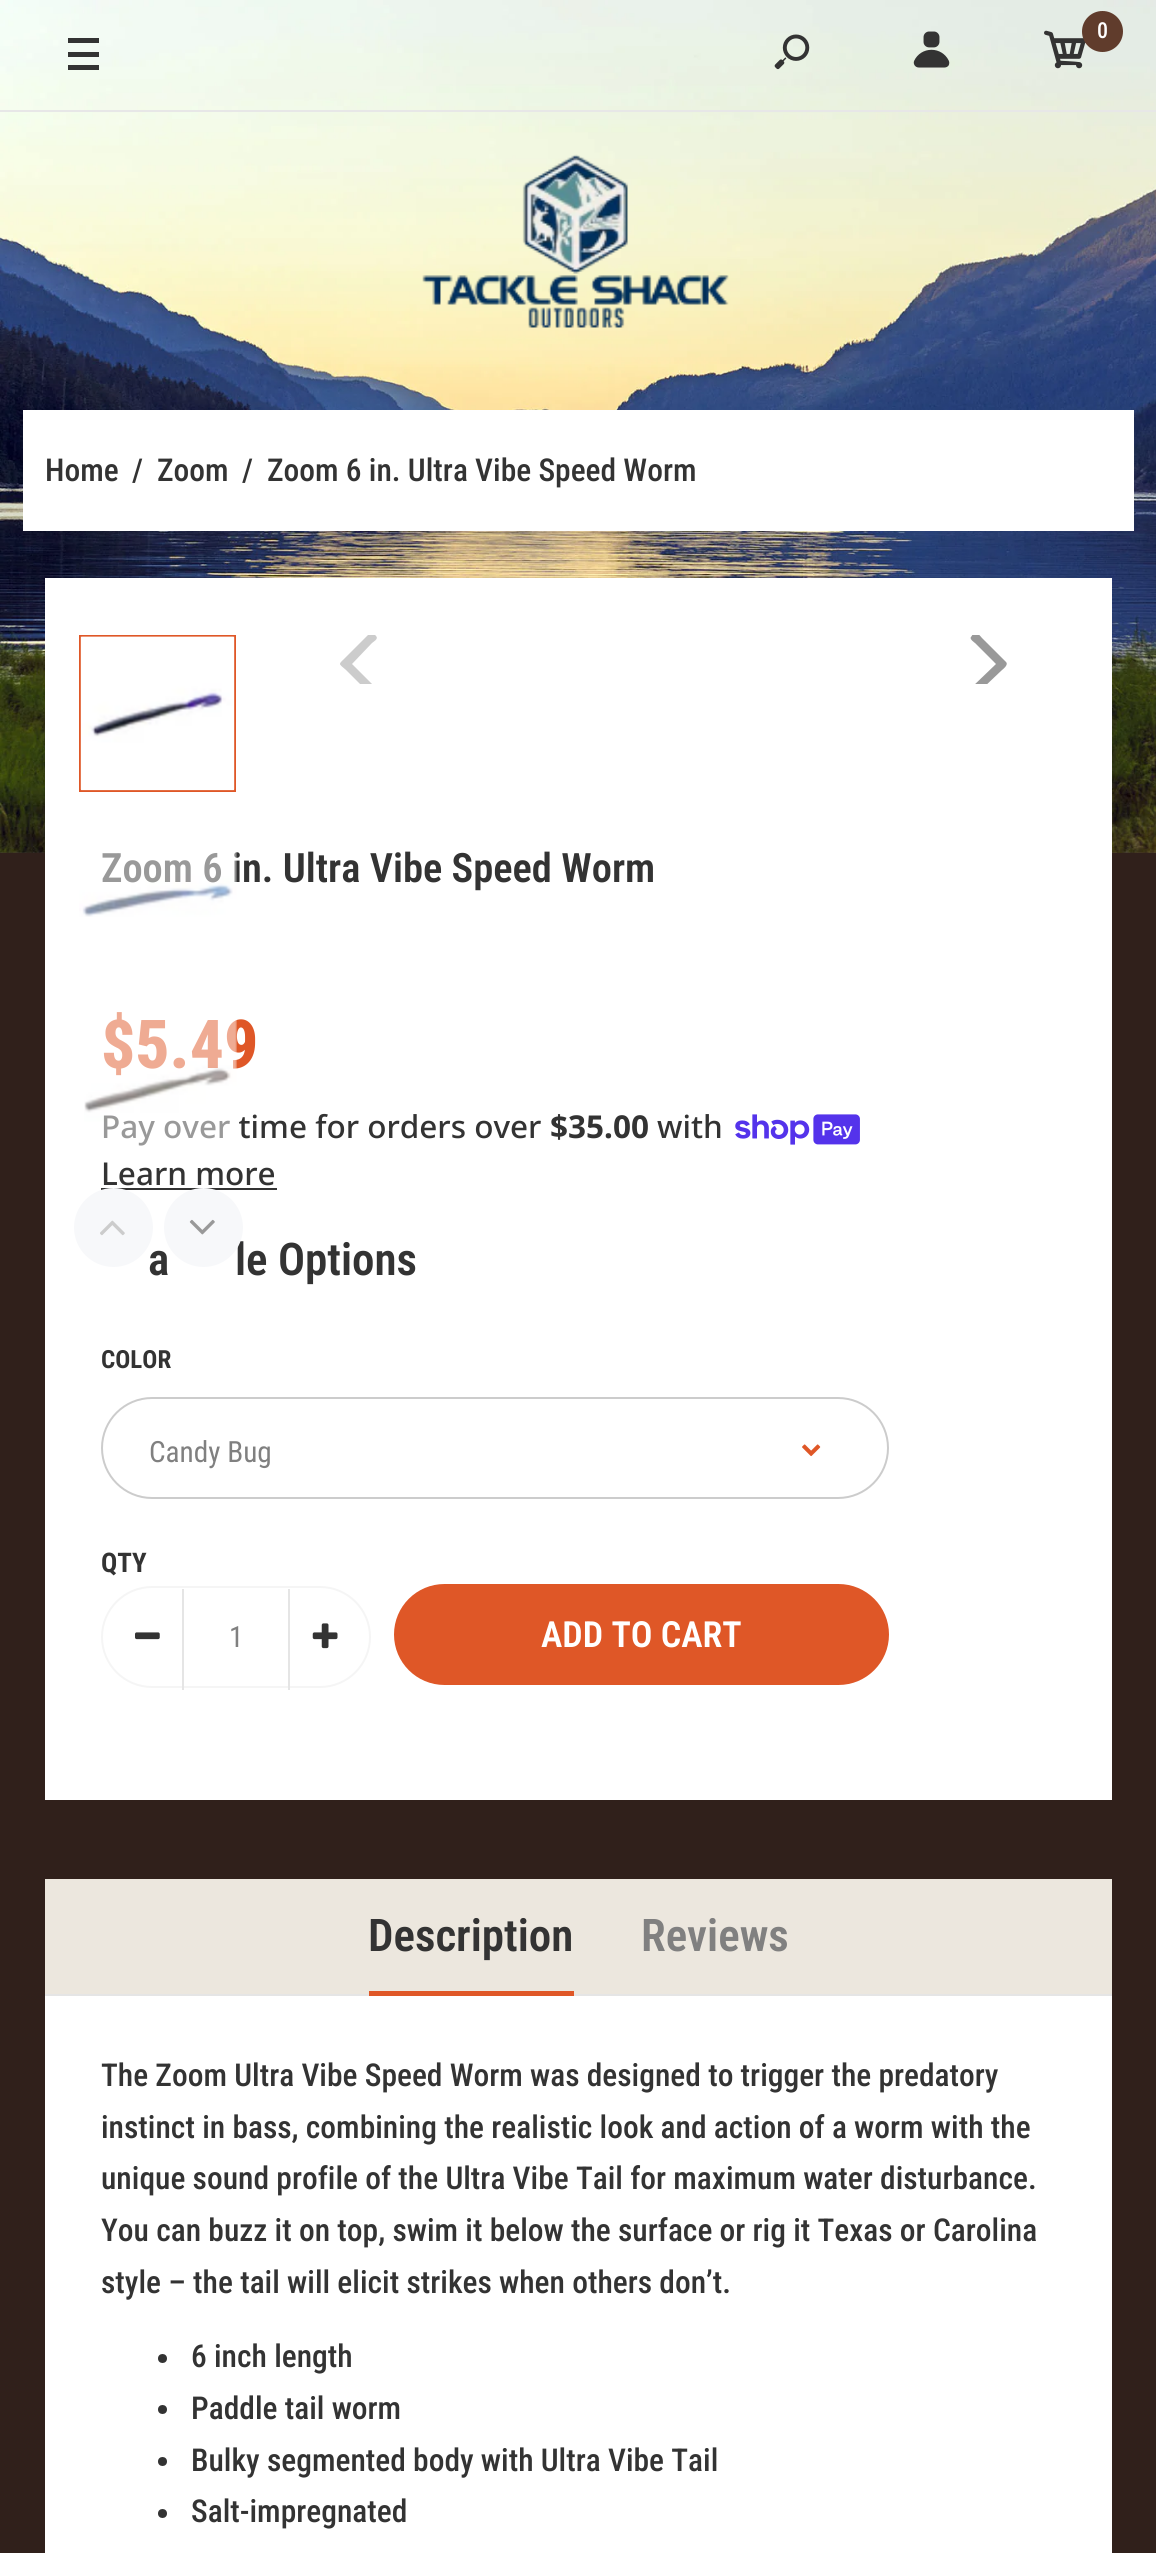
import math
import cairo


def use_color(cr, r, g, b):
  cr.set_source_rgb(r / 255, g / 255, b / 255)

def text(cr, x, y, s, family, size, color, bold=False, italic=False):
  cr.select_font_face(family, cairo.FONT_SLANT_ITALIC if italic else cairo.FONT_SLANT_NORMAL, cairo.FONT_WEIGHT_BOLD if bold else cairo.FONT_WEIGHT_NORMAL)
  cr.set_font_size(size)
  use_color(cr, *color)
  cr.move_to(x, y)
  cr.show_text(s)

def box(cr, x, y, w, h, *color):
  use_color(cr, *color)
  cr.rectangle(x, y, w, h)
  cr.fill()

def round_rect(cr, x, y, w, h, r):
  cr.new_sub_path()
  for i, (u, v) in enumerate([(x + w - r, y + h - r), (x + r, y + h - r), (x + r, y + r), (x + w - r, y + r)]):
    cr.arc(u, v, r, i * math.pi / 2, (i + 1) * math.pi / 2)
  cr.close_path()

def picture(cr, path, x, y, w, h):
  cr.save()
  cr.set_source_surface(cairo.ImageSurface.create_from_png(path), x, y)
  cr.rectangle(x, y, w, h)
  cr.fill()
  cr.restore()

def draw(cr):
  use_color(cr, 48, 32, 27)
  cr.paint()
  picture(cr, "img_01.png", 0, 0, 1156, 853)
  box(cr, 0, 110, 1156, 2, 231, 231, 231)
  box(cr, 68, 52, 31, 5, 51, 51, 51)
  box(cr, 68, 38, 31, 5, 51, 51, 51)
  box(cr, 68, 65, 31, 5, 51, 51, 51)
  picture(cr, "img_02.png", 774, 34, 36, 36)
  picture(cr, "img_03.png", 913, 31, 37, 37)
  picture(cr, "img_04.png", 1044, 30, 42, 39)
  use_color(cr, 96, 60, 44)
  cr.arc(1102.5, 31.5, 20.5, 0, 2 * math.pi)
  cr.fill()
  picture(cr, "img_05.png", 422, 154, 307, 174)
  box(cr, 23, 410, 1111, 121, 255, 255, 255)
  box(cr, 45, 578, 1067, 1222, 255, 255, 255)
  cr.rectangle(80, 636, 155, 155)
  use_color(cr, 223, 87, 39)
  cr.stroke()
  picture(cr, "img_06.png", 80, 636, 155, 155)
  cr.save()
  cr.rectangle(293, 635, 762, 49)
  cr.clip()
  use_color(cr, 204, 204, 204)
  cr.new_path()
  cr.move_to(376, 636)
  cr.curve_to(379, 639, 373, 642, 372, 643)
  cr.line_to(352, 664)
  cr.line_to(376, 688)
  cr.curve_to(378, 690, 375, 692, 374, 693)
  cr.curve_to(373, 694, 372, 696, 370, 694)
  cr.line_to(346, 670)
  cr.curve_to(338, 663, 338, 665, 346, 657)
  cr.line_to(370, 633)
  cr.curve_to(372, 631, 375, 635, 376, 636)
  cr.close_path()
  cr.fill()
  use_color(cr, 153, 153, 153)
  cr.new_path()
  cr.move_to(1006, 662)
  cr.curve_to(1009, 665, 1002, 670, 1002, 670)
  cr.line_to(982, 689)
  cr.curve_to(982, 690, 977, 697, 974, 694)
  cr.curve_to(973, 693, 969, 690, 971, 688)
  cr.line_to(996, 664)
  cr.line_to(975, 643)
  cr.curve_to(975, 643, 969, 639, 971, 637)
  cr.line_to(973, 634)
  cr.curve_to(977, 630, 978, 634, 982, 638)
  cr.close_path()
  cr.fill()
  cr.restore()
  picture(cr, "img_11.png", 735, 1114, 125, 31)
  box(cr, 101, 1188, 176, 2, 51, 51, 51)
  round_rect(cr, 102, 1398, 786, 100, 50)
  use_color(cr, 204, 204, 204)
  cr.stroke()
  picture(cr, "img_12.png", 802, 1444, 19, 13)
  round_rect(cr, 102, 1587, 268, 100, 50)
  use_color(cr, 245, 245, 245)
  cr.stroke()
  box(cr, 182, 1589, 2, 101, 229, 229, 229)
  picture(cr, "img_13.png", 135, 1632, 25, 8)
  box(cr, 288, 1589, 2, 101, 229, 229, 229)
  picture(cr, "img_14.png", 312, 1623, 26, 26)
  use_color(cr, 223, 87, 39)
  round_rect(cr, 394, 1584, 495, 101, 50.5)
  cr.fill()
  box(cr, 45, 1879, 1067, 115, 236, 231, 222)
  box(cr, 45, 1994, 1067, 2, 229, 229, 229)
  box(cr, 369, 1991, 205, 5, 223, 87, 39)
  box(cr, 45, 1996, 1067, 557, 255, 255, 255)
  use_color(cr, 51, 51, 51)
  cr.arc(162.5, 2358.5, 4.5, 0, 2 * math.pi)
  cr.fill()
  cr.arc(162.5, 2409.5, 4.5, 0, 2 * math.pi)
  cr.fill()
  cr.arc(162.5, 2461.5, 4.5, 0, 2 * math.pi)
  cr.fill()
  cr.arc(162.5, 2513.5, 4.5, 0, 2 * math.pi)
  cr.fill()
  text(cr, 1097, 38, "0", "Roboto Condensed Medium", 22, (255, 255, 255))
  text(cr, 45, 481, "Home", "Roboto Condensed Medium", 31.5, (51, 51, 51))
  text(cr, 132, 481, "/", "Roboto Condensed Medium", 31.5, (51, 51, 51))
  text(cr, 157, 481, "Zoom", "Roboto Condensed Medium", 31.5, (51, 51, 51))
  text(cr, 242, 481, "/", "Roboto Condensed Medium", 31.5, (51, 51, 51))
  text(cr, 267, 481, "Zoom 6 in. Ultra Vibe Speed Worm", "Roboto Condensed Medium", 31.5, (51, 51, 51))
  text(cr, 101, 882, "Zoom 6 in. Ultra Vibe Speed Worm", "Roboto Condensed SemiBold", 40.5, (51, 51, 51))
  picture(cr, "img_07.png", 79, 852, 158, 65)
  text(cr, 101, 1068, "$5.49", "Roboto Condensed ExtraBold", 67.5, (223, 87, 39))
  text(cr, 101, 1138, "Pay over time for orders over", "Noto Sans Medium", 31.5, (51, 51, 51))
  picture(cr, "img_08.png", 84, 1012, 153, 134)
  text(cr, 550, 1138, "$35.00", "Noto Sans", 31.5, (51, 51, 51), bold=True)
  text(cr, 657, 1138, "with", "Noto Sans Medium", 31.5, (51, 51, 51))
  text(cr, 101, 1185, "Learn more", "Noto Sans Medium", 31.5, (51, 51, 51))
  text(cr, 148, 1275, "a", "Roboto Condensed SemiBold", 45, (51, 51, 51))
  use_color(cr, 247, 248, 250)
  cr.new_path()
  cr.arc(113.5, 1227.5, 39.5, 0, 2 * math.pi)
  cr.fill()
  picture(cr, "img_09.png", 100, 1220, 25, 16)
  text(cr, 235, 1275, "le Options", "Roboto Condensed SemiBold", 45, (51, 51, 51))
  use_color(cr, 247, 248, 250)
  cr.new_path()
  cr.arc(203.5, 1227.5, 39.5, 0, 2 * math.pi)
  cr.fill()
  picture(cr, "img_10.png", 189, 1219, 26, 16)
  text(cr, 101, 1368, "COLOR", "Roboto Condensed", 25, (51, 51, 51), bold=True)
  text(cr, 149, 1462, "Candy Bug", "Roboto Condensed", 29.25, (128, 128, 128))
  text(cr, 101, 1572, "QTY", "Roboto Condensed", 27, (51, 51, 51), bold=True)
  text(cr, 229, 1647, "1", "Roboto Condensed", 29.25, (128, 128, 128))
  text(cr, 541, 1647, "ADD TO CART", "Roboto Condensed SemiBold", 36, (255, 255, 255))
  text(cr, 368, 1951, "Description", "Roboto Condensed SemiBold", 45, (51, 51, 51))
  text(cr, 641, 1951, "Reviews", "Roboto Condensed SemiBold", 45, (128, 128, 128))
  text(cr, 101, 2086, "The Zoom Ultra Vibe Speed Worm was designed to trigger the predatory", "Roboto Condensed Medium", 31.5, (51, 51, 51))
  text(cr, 101, 2138, "instinct in bass, combining the realistic look and action of a worm with the", "Roboto Condensed Medium", 31.5, (51, 51, 51))
  text(cr, 101, 2189, "unique sound profile of the Ultra Vibe Tail for maximum water disturbance.", "Roboto Condensed Medium", 31.5, (51, 51, 51))
  text(cr, 101, 2241, "You can buzz it on top, swim it below the surface or rig it Texas or Carolina", "Roboto Condensed Medium", 31.5, (51, 51, 51))
  text(cr, 101, 2293, "style – the tail will elicit strikes when others don’t.", "Roboto Condensed Medium", 31.5, (51, 51, 51))
  text(cr, 191, 2367, "6 inch length", "Roboto Condensed Medium", 31.5, (51, 51, 51))
  text(cr, 191, 2419, "Paddle tail worm", "Roboto Condensed Medium", 31.5, (51, 51, 51))
  text(cr, 191, 2471, "Bulky segmented body with Ultra Vibe Tail", "Roboto Condensed Medium", 31.5, (51, 51, 51))
  text(cr, 191, 2522, "Salt-impregnated", "Roboto Condensed Medium", 31.5, (51, 51, 51))


surface = cairo.ImageSurface(cairo.FORMAT_RGB24, 1156, 2553)
cr = cairo.Context(surface)
options = cairo.FontOptions()
options.set_hint_metrics(cairo.HINT_METRICS_OFF)
options.set_hint_style(cairo.HINT_STYLE_NONE)
cr.set_font_options(options)
cr.set_miter_limit(4)
draw(cr)
surface.write_to_png("out.png")
